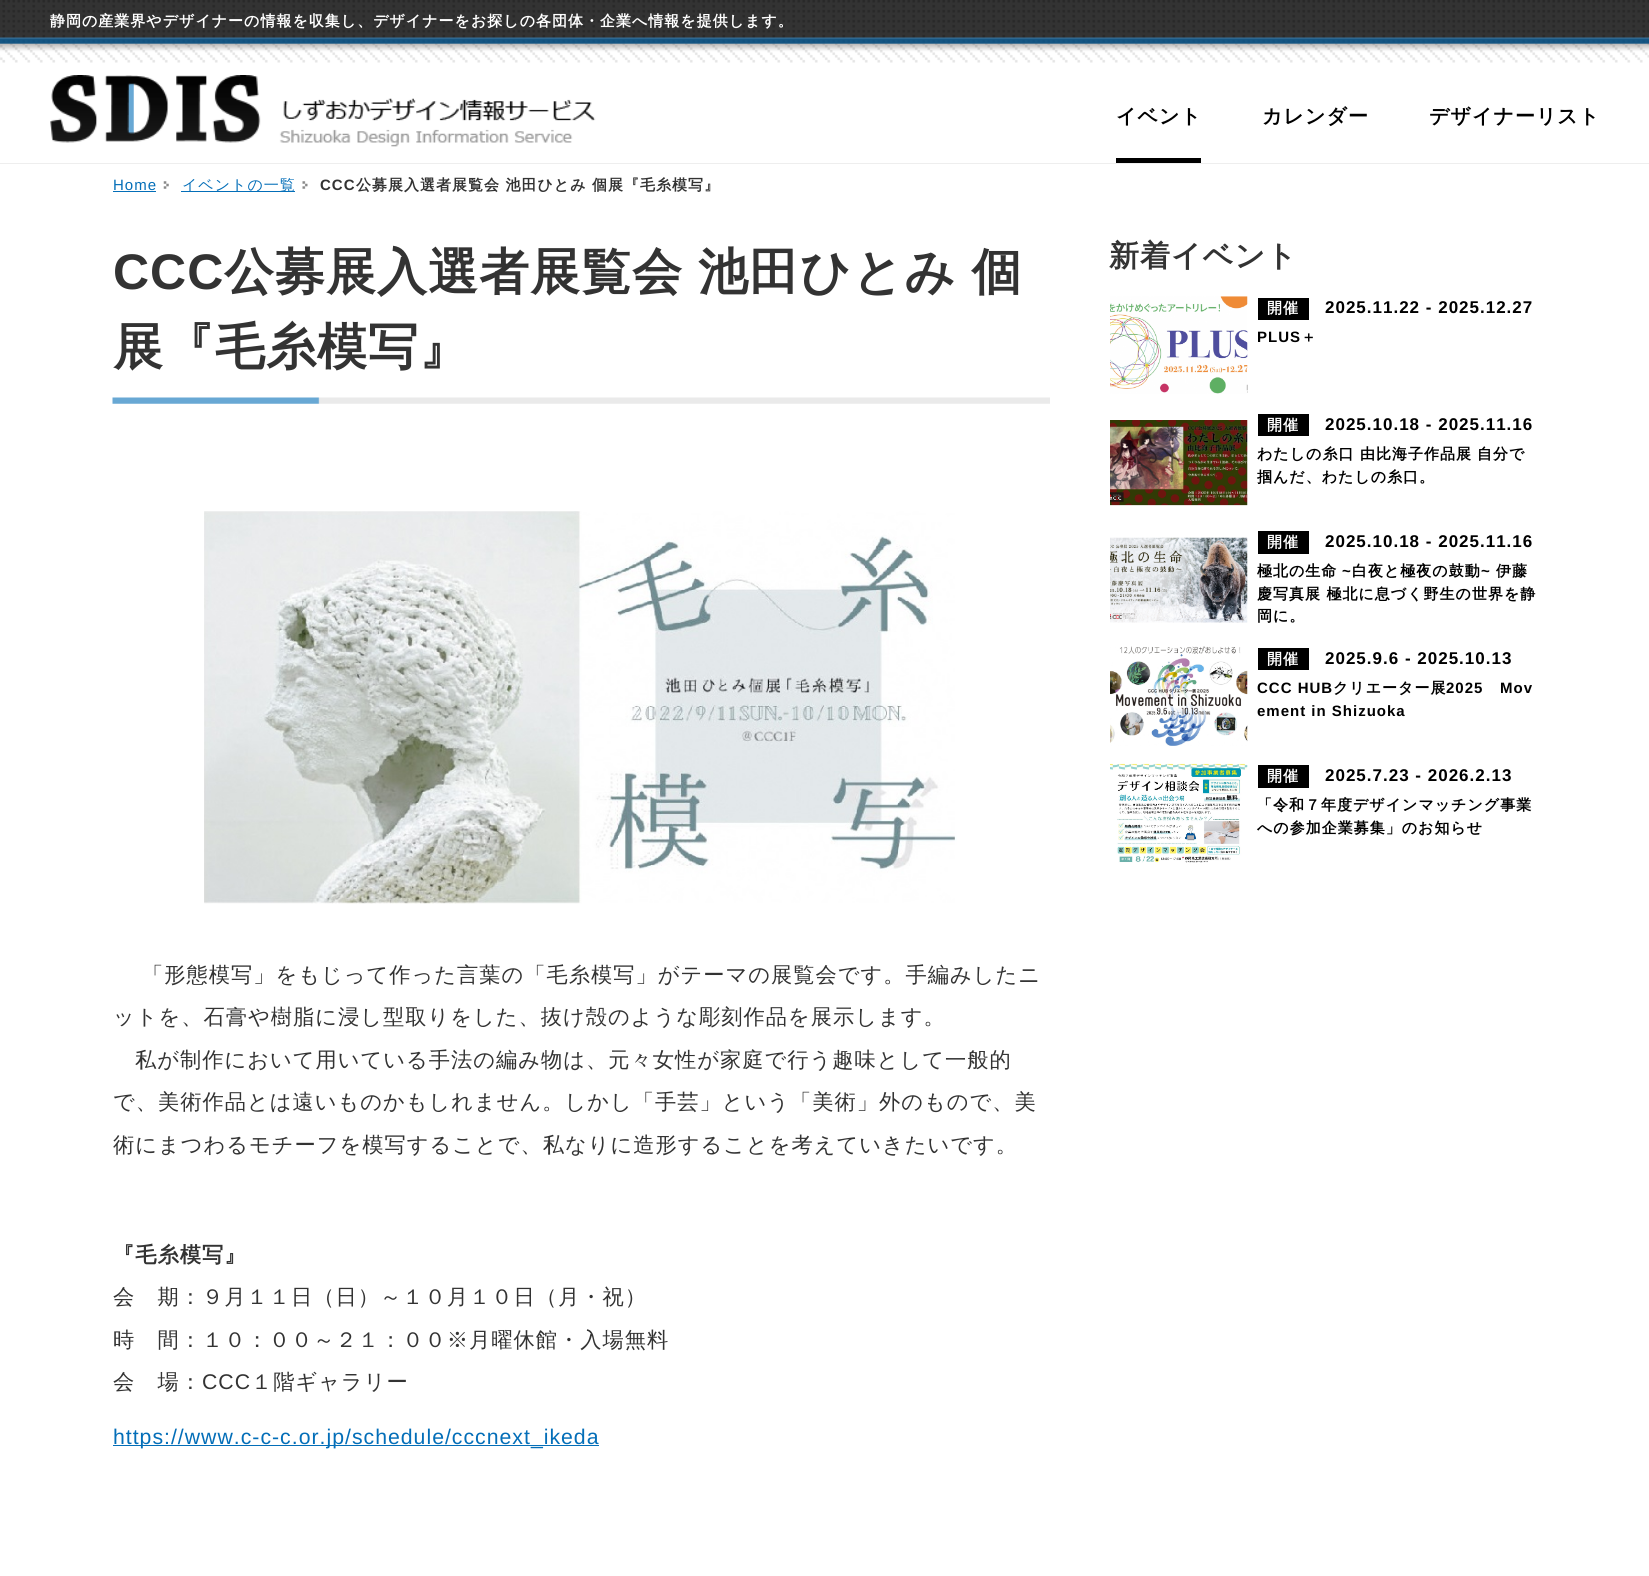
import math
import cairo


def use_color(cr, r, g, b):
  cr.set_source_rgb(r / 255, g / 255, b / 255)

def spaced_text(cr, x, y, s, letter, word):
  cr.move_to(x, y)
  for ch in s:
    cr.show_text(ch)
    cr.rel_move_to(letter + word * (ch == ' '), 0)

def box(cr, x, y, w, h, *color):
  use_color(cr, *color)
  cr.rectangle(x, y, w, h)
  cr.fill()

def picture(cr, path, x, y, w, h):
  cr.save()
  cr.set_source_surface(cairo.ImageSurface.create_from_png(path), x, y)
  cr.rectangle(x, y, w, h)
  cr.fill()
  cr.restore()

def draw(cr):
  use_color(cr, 255, 255, 255)
  cr.paint()
  picture(cr, "img_01.png", 0, 0, 1649, 63)
  box(cr, 0, 163, 1649, 1, 238, 238, 238)
  picture(cr, "img_02.png", 50, 75, 546, 72)
  box(cr, 1116, 158, 85, 5, 0, 0, 0)
  box(cr, 113, 191, 43, 1, 3, 110, 184)
  picture(cr, "img_03.png", 163, 181, 6, 8)
  box(cr, 181, 191, 114, 1, 3, 110, 184)
  picture(cr, "img_04.png", 302, 181, 6, 8)
  picture(cr, "img_05.png", 112, 397, 938, 7)
  picture(cr, "img_06.png", 204, 511, 753, 393)
  box(cr, 113, 1445, 486, 1, 3, 110, 184)
  picture(cr, "img_07.png", 1110, 296, 138, 98)
  box(cr, 1258, 298, 51, 22, 0, 0, 0)
  picture(cr, "img_08.png", 1110, 420, 138, 86)
  box(cr, 1258, 414, 51, 22, 0, 0, 0)
  picture(cr, "img_09.png", 1110, 537, 138, 86)
  box(cr, 1258, 531, 51, 23, 0, 0, 0)
  picture(cr, "img_10.png", 1110, 646, 138, 100)
  box(cr, 1258, 648, 51, 22, 0, 0, 0)
  picture(cr, "img_11.png", 1110, 763, 138, 100)
  box(cr, 1258, 765, 51, 23, 0, 0, 0)
  cr.select_font_face("WenQuanYi Zen Hei", cairo.FONT_SLANT_NORMAL, cairo.FONT_WEIGHT_BOLD)
  cr.set_font_size(15)
  use_color(cr, 255, 255, 255)
  spaced_text(cr, 50, 26, "静岡の産業界やデザイナーの情報を収集し、デザイナーをお探しの各団体・企業へ情報を提供します。", 1, 0)
  cr.set_font_size(20)
  use_color(cr, 0, 0, 0)
  spaced_text(cr, 1116, 123, "イベント", 1, 0)
  spaced_text(cr, 1262, 123, "カレンダー", 1, 0)
  spaced_text(cr, 1429, 123, "デザイナーリスト", 1, 0)
  cr.select_font_face("Liberation Sans")
  cr.set_font_size(15)
  use_color(cr, 3, 110, 184)
  spaced_text(cr, 113, 190, "Home", 1, 0)
  cr.select_font_face("WenQuanYi Zen Hei Medium")
  spaced_text(cr, 182, 190, "イベントの一覧", 1, 0)
  cr.select_font_face("Liberation Sans", cairo.FONT_SLANT_NORMAL, cairo.FONT_WEIGHT_BOLD)
  use_color(cr, 51, 51, 51)
  spaced_text(cr, 320, 190, "CCC", 1, 0)
  cr.select_font_face("WenQuanYi Zen Hei", cairo.FONT_SLANT_NORMAL, cairo.FONT_WEIGHT_BOLD)
  spaced_text(cr, 356, 190, "公募展入選者展覧会 池田ひとみ 個展『毛糸模写』", 1, 0)
  cr.select_font_face("Liberation Sans", cairo.FONT_SLANT_NORMAL, cairo.FONT_WEIGHT_BOLD)
  cr.set_font_size(50)
  spaced_text(cr, 113, 289, "CCC", 1, 0)
  cr.select_font_face("WenQuanYi Zen Hei", cairo.FONT_SLANT_NORMAL, cairo.FONT_WEIGHT_BOLD)
  spaced_text(cr, 224, 289, "公募展入選者展覧会 池田ひとみ 個", 1, -1)
  spaced_text(cr, 113, 364, "展『毛糸模写』", 1, 0)
  cr.select_font_face("WenQuanYi Zen Hei Medium")
  cr.set_font_size(21.25)
  spaced_text(cr, 142, 982, "「形態模写」をもじって作った言葉の「毛糸模写」がテーマの展覧会です。手編みしたニ", 1, 0)
  spaced_text(cr, 113, 1024, "ットを、石膏や樹脂に浸し型取りをした、抜け殻のような彫刻作品を展示します。", 1, 0)
  spaced_text(cr, 135, 1067, "私が制作において用いている手法の編み物は、元々女性が家庭で行う趣味として一般的", 1, 0)
  spaced_text(cr, 113, 1109, "で、美術作品とは遠いものかもしれません。しかし「手芸」という「美術」外のもので、美", 1, 0)
  spaced_text(cr, 113, 1152, "術にまつわるモチーフを模写することで、私なりに造形することを考えていきたいです。", 1, 0)
  cr.select_font_face("WenQuanYi Zen Hei", cairo.FONT_SLANT_NORMAL, cairo.FONT_WEIGHT_BOLD)
  spaced_text(cr, 113, 1262, "『毛糸模写』", 1, 0)
  cr.select_font_face("WenQuanYi Zen Hei Medium")
  spaced_text(cr, 113, 1304, "会　期：９月１１日（日）～１０月１０日（月・祝）", 1, 0)
  spaced_text(cr, 113, 1347, "時　間：１０：００～２１：００※月曜休館・入場無料", 1, 0)
  spaced_text(cr, 113, 1389, "会　場：", 1, 0)
  cr.select_font_face("Liberation Sans")
  spaced_text(cr, 202, 1389, "CCC", 1, 0)
  cr.select_font_face("WenQuanYi Zen Hei Medium")
  spaced_text(cr, 251, 1389, "１階ギャラリー", 1, 0)
  cr.select_font_face("Liberation Sans")
  use_color(cr, 3, 110, 184)
  spaced_text(cr, 113, 1444, "https://www.c-c-c.or.jp/schedule/cccnext_ikeda", 1, 0)
  cr.select_font_face("WenQuanYi Zen Hei", cairo.FONT_SLANT_NORMAL, cairo.FONT_WEIGHT_BOLD)
  cr.set_font_size(30)
  use_color(cr, 51, 51, 51)
  spaced_text(cr, 1109, 266, "新着イベント", 1, 0)
  cr.set_font_size(15)
  use_color(cr, 255, 255, 255)
  spaced_text(cr, 1267, 313, "開催", 1, 0)
  cr.select_font_face("Liberation Sans", cairo.FONT_SLANT_NORMAL, cairo.FONT_WEIGHT_BOLD)
  cr.set_font_size(17)
  use_color(cr, 0, 0, 0)
  spaced_text(cr, 1325, 313, "2025.11.22 - 2025.12.27", 1, 0)
  cr.set_font_size(15)
  spaced_text(cr, 1257, 342, "PLUS", 1, 0)
  cr.select_font_face("WenQuanYi Zen Hei", cairo.FONT_SLANT_NORMAL, cairo.FONT_WEIGHT_BOLD)
  spaced_text(cr, 1301, 342, "＋", 1, 0)
  use_color(cr, 255, 255, 255)
  spaced_text(cr, 1267, 430, "開催", 1, 0)
  cr.select_font_face("Liberation Sans", cairo.FONT_SLANT_NORMAL, cairo.FONT_WEIGHT_BOLD)
  cr.set_font_size(17)
  use_color(cr, 0, 0, 0)
  spaced_text(cr, 1325, 430, "2025.10.18 - 2025.11.16", 1, 0)
  cr.select_font_face("WenQuanYi Zen Hei", cairo.FONT_SLANT_NORMAL, cairo.FONT_WEIGHT_BOLD)
  cr.set_font_size(15)
  spaced_text(cr, 1257, 459, "わたしの糸口 由比海子作品展", 1, 0)
  spaced_text(cr, 1477, 459, "自分で", 1, 0)
  spaced_text(cr, 1257, 482, "掴んだ、わたしの糸口。", 1, 0)
  use_color(cr, 255, 255, 255)
  spaced_text(cr, 1267, 547, "開催", 1, 0)
  cr.select_font_face("Liberation Sans", cairo.FONT_SLANT_NORMAL, cairo.FONT_WEIGHT_BOLD)
  cr.set_font_size(17)
  use_color(cr, 0, 0, 0)
  spaced_text(cr, 1325, 547, "2025.10.18 - 2025.11.16", 1, 0)
  cr.select_font_face("WenQuanYi Zen Hei", cairo.FONT_SLANT_NORMAL, cairo.FONT_WEIGHT_BOLD)
  cr.set_font_size(15)
  spaced_text(cr, 1257, 576, "極北の生命", 1, 0)
  cr.select_font_face("Liberation Sans", cairo.FONT_SLANT_NORMAL, cairo.FONT_WEIGHT_BOLD)
  spaced_text(cr, 1342, 576, "~", 1, 0)
  cr.select_font_face("WenQuanYi Zen Hei", cairo.FONT_SLANT_NORMAL, cairo.FONT_WEIGHT_BOLD)
  spaced_text(cr, 1352, 576, "白夜と極夜の鼓動", 1, 0)
  cr.select_font_face("Liberation Sans", cairo.FONT_SLANT_NORMAL, cairo.FONT_WEIGHT_BOLD)
  spaced_text(cr, 1481, 576, "~", 1, 0)
  cr.select_font_face("WenQuanYi Zen Hei", cairo.FONT_SLANT_NORMAL, cairo.FONT_WEIGHT_BOLD)
  spaced_text(cr, 1496, 576, "伊藤", 1, 0)
  spaced_text(cr, 1257, 599, "慶写真展 極北に息づく野生の世界を静", 1, 0)
  spaced_text(cr, 1257, 621, "岡に。", 1, 0)
  use_color(cr, 255, 255, 255)
  spaced_text(cr, 1267, 664, "開催", 1, 0)
  cr.select_font_face("Liberation Sans", cairo.FONT_SLANT_NORMAL, cairo.FONT_WEIGHT_BOLD)
  cr.set_font_size(17)
  use_color(cr, 0, 0, 0)
  spaced_text(cr, 1325, 664, "2025.9.6 - 2025.10.13", 1, 0)
  cr.set_font_size(15)
  spaced_text(cr, 1257, 693, "CCC HUB", 1, 0)
  cr.select_font_face("WenQuanYi Zen Hei", cairo.FONT_SLANT_NORMAL, cairo.FONT_WEIGHT_BOLD)
  spaced_text(cr, 1333, 693, "クリエーター展", 1, 0)
  cr.select_font_face("Liberation Sans", cairo.FONT_SLANT_NORMAL, cairo.FONT_WEIGHT_BOLD)
  spaced_text(cr, 1446, 693, "2025", 1, 0)
  spaced_text(cr, 1500, 693, "Mov", 1, 0)
  spaced_text(cr, 1257, 716, "ement in Shizuoka", 1, 0)
  cr.select_font_face("WenQuanYi Zen Hei", cairo.FONT_SLANT_NORMAL, cairo.FONT_WEIGHT_BOLD)
  use_color(cr, 255, 255, 255)
  spaced_text(cr, 1267, 781, "開催", 1, 0)
  cr.select_font_face("Liberation Sans", cairo.FONT_SLANT_NORMAL, cairo.FONT_WEIGHT_BOLD)
  cr.set_font_size(17)
  use_color(cr, 0, 0, 0)
  spaced_text(cr, 1325, 781, "2025.7.23 - 2026.2.13", 1, 0)
  cr.select_font_face("WenQuanYi Zen Hei", cairo.FONT_SLANT_NORMAL, cairo.FONT_WEIGHT_BOLD)
  cr.set_font_size(15)
  spaced_text(cr, 1257, 810, "「令和７年度デザインマッチング事業", 1, 0)
  spaced_text(cr, 1257, 833, "への参加企業募集」のお知らせ", 1, 0)


surface = cairo.ImageSurface(cairo.FORMAT_RGB24, 1649, 1576)
cr = cairo.Context(surface)
options = cairo.FontOptions()
options.set_hint_metrics(cairo.HINT_METRICS_OFF)
options.set_hint_style(cairo.HINT_STYLE_NONE)
cr.set_font_options(options)
cr.set_miter_limit(4)
draw(cr)
surface.write_to_png("out.png")
